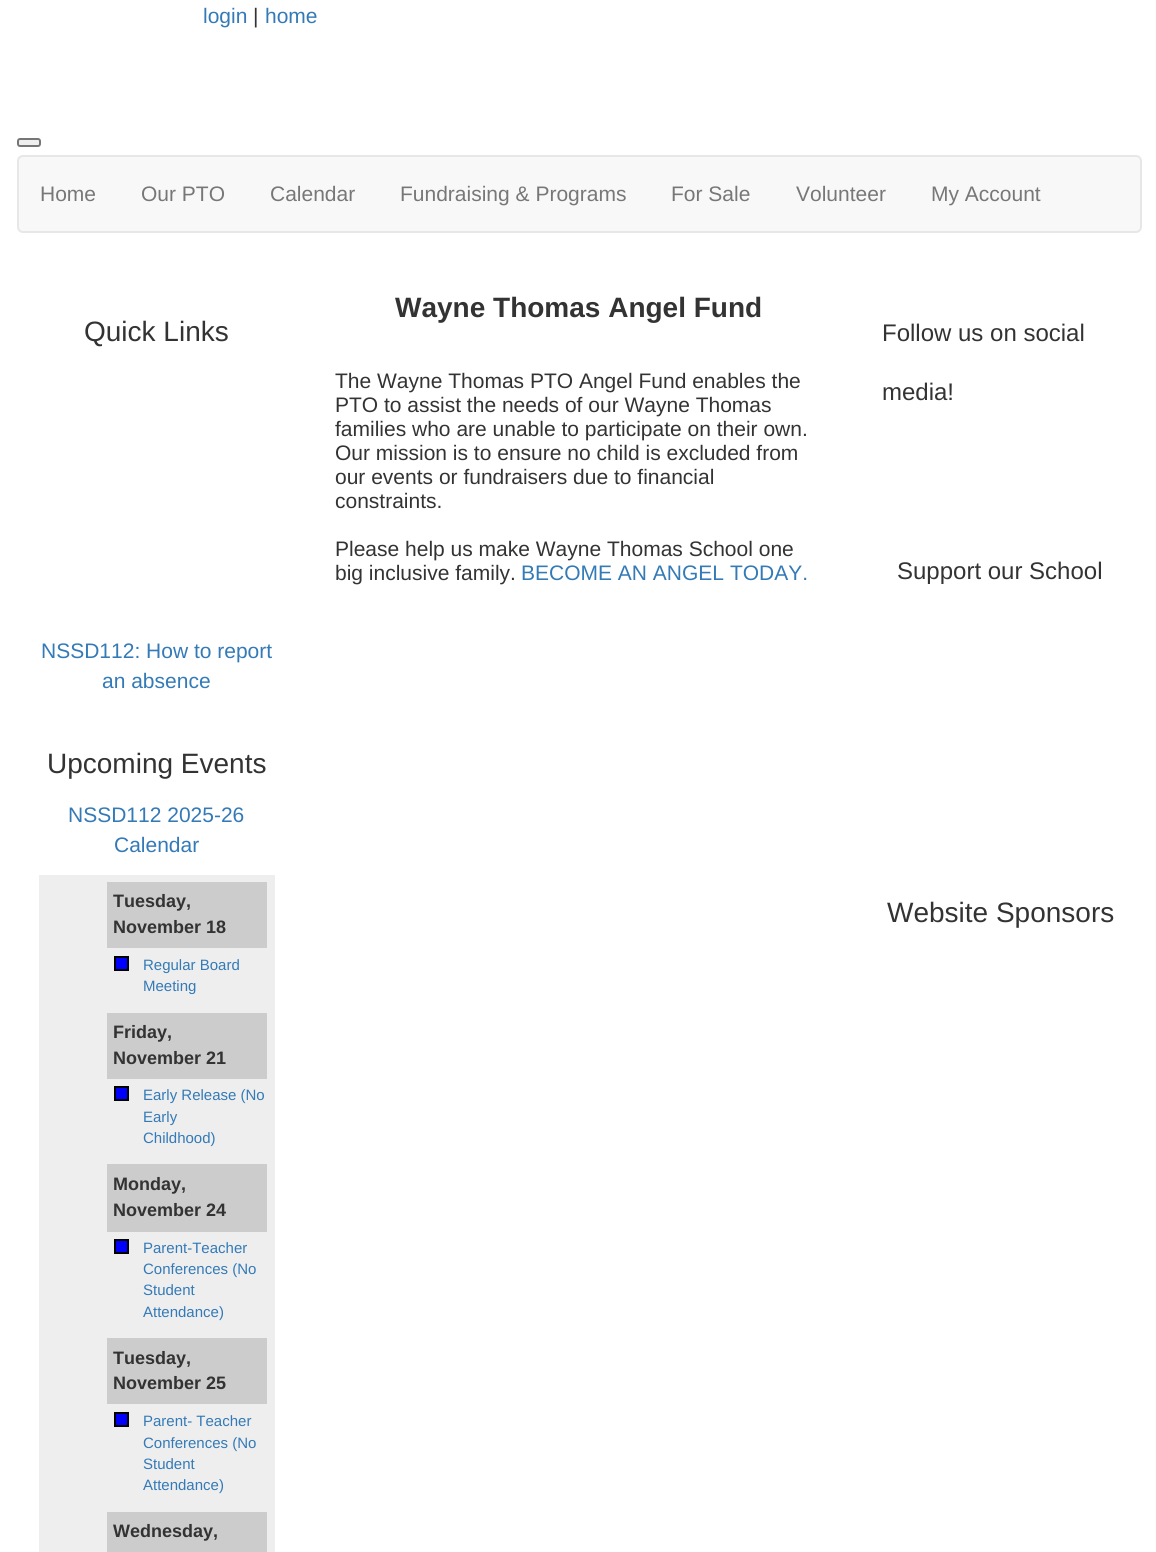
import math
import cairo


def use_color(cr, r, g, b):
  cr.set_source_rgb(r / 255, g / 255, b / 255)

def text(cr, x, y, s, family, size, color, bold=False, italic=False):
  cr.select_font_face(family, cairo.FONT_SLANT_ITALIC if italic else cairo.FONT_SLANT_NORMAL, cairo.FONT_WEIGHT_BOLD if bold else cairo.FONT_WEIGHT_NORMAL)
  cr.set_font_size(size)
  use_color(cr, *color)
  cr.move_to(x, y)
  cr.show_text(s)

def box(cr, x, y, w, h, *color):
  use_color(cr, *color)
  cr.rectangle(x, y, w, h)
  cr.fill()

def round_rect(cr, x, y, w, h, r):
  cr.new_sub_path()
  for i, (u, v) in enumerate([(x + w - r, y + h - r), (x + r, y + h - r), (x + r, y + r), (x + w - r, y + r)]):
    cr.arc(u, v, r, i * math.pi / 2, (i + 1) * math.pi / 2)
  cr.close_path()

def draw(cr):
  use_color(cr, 255, 255, 255)
  cr.paint()
  use_color(cr, 239, 239, 239)
  round_rect(cr, 18, 139, 22, 7, 2)
  cr.fill_preserve()
  use_color(cr, 118, 118, 118)
  cr.stroke()
  use_color(cr, 248, 248, 248)
  round_rect(cr, 18, 156, 1123, 76, 5)
  cr.fill_preserve()
  use_color(cr, 231, 231, 231)
  cr.stroke()
  box(cr, 39, 875, 236, 677, 238, 238, 238)
  box(cr, 107, 882, 160, 66, 204, 204, 204)
  use_color(cr, 0, 0, 255)
  cr.rectangle(115, 957, 13, 13)
  cr.fill_preserve()
  use_color(cr, 0, 0, 0)
  cr.stroke()
  box(cr, 107, 1013, 160, 66, 204, 204, 204)
  use_color(cr, 0, 0, 255)
  cr.rectangle(115, 1087, 13, 13)
  cr.fill_preserve()
  use_color(cr, 0, 0, 0)
  cr.stroke()
  box(cr, 107, 1164, 160, 68, 204, 204, 204)
  use_color(cr, 0, 0, 255)
  cr.rectangle(115, 1240, 13, 13)
  cr.fill_preserve()
  use_color(cr, 0, 0, 0)
  cr.stroke()
  box(cr, 107, 1338, 160, 66, 204, 204, 204)
  use_color(cr, 0, 0, 255)
  cr.rectangle(115, 1413, 13, 13)
  cr.fill_preserve()
  use_color(cr, 0, 0, 0)
  cr.stroke()
  box(cr, 107, 1512, 160, 40, 204, 204, 204)
  text(cr, 203, 23, "login", "Liberation Sans", 21, (51, 122, 183))
  text(cr, 253, 23, "|", "Liberation Sans", 21, (51, 51, 51))
  text(cr, 265, 23, "home", "Liberation Sans", 21, (51, 122, 183))
  text(cr, 40, 201, "Home", "Liberation Sans", 21, (119, 119, 119))
  text(cr, 141, 201, "Our PTO", "Liberation Sans", 21, (119, 119, 119))
  text(cr, 270, 201, "Calendar", "Liberation Sans", 21, (119, 119, 119))
  text(cr, 400, 201, "Fundraising & Programs", "Liberation Sans", 21, (119, 119, 119))
  text(cr, 671, 201, "For Sale", "Liberation Sans", 21, (119, 119, 119))
  text(cr, 796, 201, "Volunteer", "Liberation Sans", 21, (119, 119, 119))
  text(cr, 931, 201, "My Account", "Liberation Sans", 21, (119, 119, 119))
  text(cr, 84, 341, "Quick Links", "Liberation Sans", 28, (51, 51, 51))
  text(cr, 41, 658, "NSSD112: How to report", "Liberation Sans", 21, (51, 122, 183))
  text(cr, 102, 688, "an absence", "Liberation Sans", 21, (51, 122, 183))
  text(cr, 47, 773, "Upcoming Events", "Liberation Sans", 28, (51, 51, 51))
  text(cr, 68, 822, "NSSD112 2025-26", "Liberation Sans", 21, (51, 122, 183))
  text(cr, 114, 852, "Calendar", "Liberation Sans", 21, (51, 122, 183))
  text(cr, 113, 907, "Tuesday,", "Liberation Sans", 18, (51, 51, 51), bold=True)
  text(cr, 113, 933, "November 18", "Liberation Sans", 18, (51, 51, 51), bold=True)
  text(cr, 143, 970, "Regular Board", "Liberation Sans", 15, (51, 122, 183))
  text(cr, 143, 991, "Meeting", "Liberation Sans", 15, (51, 122, 183))
  text(cr, 113, 1038, "Friday,", "Liberation Sans", 18, (51, 51, 51), bold=True)
  text(cr, 113, 1064, "November 21", "Liberation Sans", 18, (51, 51, 51), bold=True)
  text(cr, 143, 1100, "Early Release (No", "Liberation Sans", 15, (51, 122, 183))
  text(cr, 143, 1122, "Early", "Liberation Sans", 15, (51, 122, 183))
  text(cr, 143, 1143, "Childhood)", "Liberation Sans", 15, (51, 122, 183))
  text(cr, 113, 1190, "Monday,", "Liberation Sans", 18, (51, 51, 51), bold=True)
  text(cr, 113, 1216, "November 24", "Liberation Sans", 18, (51, 51, 51), bold=True)
  text(cr, 143, 1253, "Parent-Teacher", "Liberation Sans", 15, (51, 122, 183))
  text(cr, 143, 1274, "Conferences (No", "Liberation Sans", 15, (51, 122, 183))
  text(cr, 143, 1295, "Student", "Liberation Sans", 15, (51, 122, 183))
  text(cr, 143, 1317, "Attendance)", "Liberation Sans", 15, (51, 122, 183))
  text(cr, 113, 1364, "Tuesday,", "Liberation Sans", 18, (51, 51, 51), bold=True)
  text(cr, 113, 1389, "November 25", "Liberation Sans", 18, (51, 51, 51), bold=True)
  text(cr, 143, 1426, "Parent- Teacher", "Liberation Sans", 15, (51, 122, 183))
  text(cr, 143, 1448, "Conferences (No", "Liberation Sans", 15, (51, 122, 183))
  text(cr, 143, 1469, "Student", "Liberation Sans", 15, (51, 122, 183))
  text(cr, 143, 1490, "Attendance)", "Liberation Sans", 15, (51, 122, 183))
  text(cr, 113, 1537, "Wednesday,", "Liberation Sans", 18, (51, 51, 51), bold=True)
  text(cr, 395, 317, "Wayne Thomas Angel Fund", "Liberation Sans", 28, (51, 51, 51), bold=True)
  text(cr, 335, 388, "The Wayne Thomas PTO Angel Fund enables the", "Liberation Sans", 21, (51, 51, 51))
  text(cr, 335, 412, "PTO to assist the needs of our Wayne Thomas", "Liberation Sans", 21, (51, 51, 51))
  text(cr, 335, 436, "families who are unable to participate on their own.", "Liberation Sans", 21, (51, 51, 51))
  text(cr, 335, 460, "Our mission is to ensure no child is excluded from", "Liberation Sans", 21, (51, 51, 51))
  text(cr, 335, 484, "our events or fundraisers due to financial", "Liberation Sans", 21, (51, 51, 51))
  text(cr, 335, 508, "constraints.", "Liberation Sans", 21, (51, 51, 51))
  text(cr, 335, 556, "Please help us make Wayne Thomas School one", "Liberation Sans", 21, (51, 51, 51))
  text(cr, 335, 580, "big inclusive family.", "Liberation Sans", 21, (51, 51, 51))
  text(cr, 521, 580, "BECOME AN ANGEL TODAY.", "Liberation Sans", 21, (51, 122, 183))
  text(cr, 882, 341, "Follow us on social", "Liberation Sans", 24, (51, 51, 51))
  text(cr, 882, 400, "media!", "Liberation Sans", 24, (51, 51, 51))
  text(cr, 897, 579, "Support our School", "Liberation Sans", 24, (51, 51, 51))
  text(cr, 887, 922, "Website Sponsors", "Liberation Sans", 28, (51, 51, 51))


surface = cairo.ImageSurface(cairo.FORMAT_RGB24, 1156, 1552)
cr = cairo.Context(surface)
options = cairo.FontOptions()
options.set_hint_metrics(cairo.HINT_METRICS_OFF)
options.set_hint_style(cairo.HINT_STYLE_NONE)
cr.set_font_options(options)
cr.set_miter_limit(4)
draw(cr)
surface.write_to_png("out.png")
